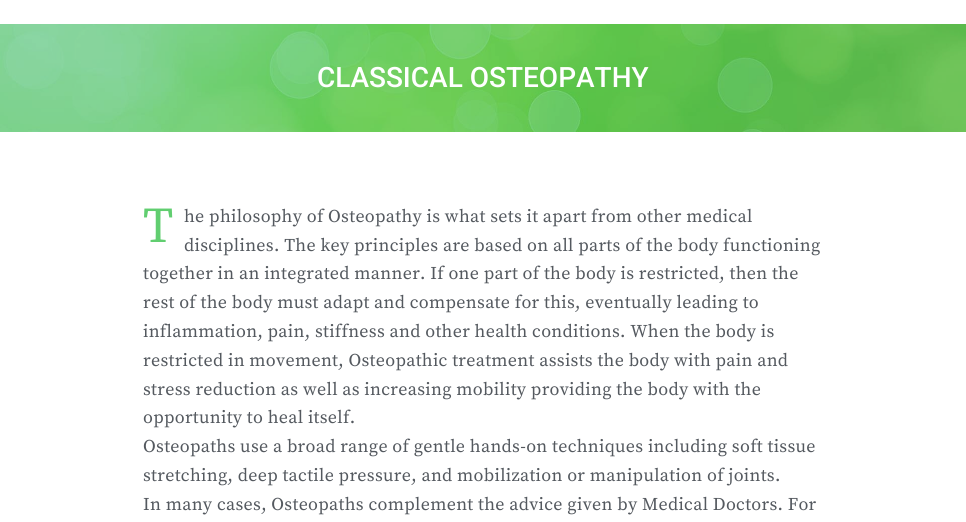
import math
import cairo


def use_color(cr, r, g, b):
  cr.set_source_rgb(r / 255, g / 255, b / 255)

def text(cr, x, y, s, family, size, color, bold=False, italic=False):
  cr.select_font_face(family, cairo.FONT_SLANT_ITALIC if italic else cairo.FONT_SLANT_NORMAL, cairo.FONT_WEIGHT_BOLD if bold else cairo.FONT_WEIGHT_NORMAL)
  cr.set_font_size(size)
  use_color(cr, *color)
  cr.move_to(x, y)
  cr.show_text(s)

def spaced_text(cr, x, y, s, letter, word):
  cr.move_to(x, y)
  for ch in s:
    cr.show_text(ch)
    cr.rel_move_to(letter + word * (ch == ' '), 0)

def picture(cr, path, x, y, w, h):
  cr.save()
  cr.set_source_surface(cairo.ImageSurface.create_from_png(path), x, y)
  cr.rectangle(x, y, w, h)
  cr.fill()
  cr.restore()

def draw(cr):
  use_color(cr, 255, 255, 255)
  cr.paint()
  picture(cr, "img_01.png", 0, 24, 966, 108)
  text(cr, 317, 87, "CLASSICAL OSTEOPATHY", "Roboto Medium", 28, (255, 255, 255))
  cr.select_font_face("Source Serif Pro")
  cr.set_font_size(50)
  use_color(cr, 97, 206, 112)
  spaced_text(cr, 143, 242, "T", 0.3, 0)
  cr.set_font_size(18)
  use_color(cr, 84, 89, 95)
  spaced_text(cr, 184, 222, "he philosophy of Osteopathy is what sets it apart from other medical", 0.3, 0)
  spaced_text(cr, 184, 251, "disciplines. The key principles are based on all parts of the body functioning", 0.3, 0)
  spaced_text(cr, 143, 279, "together in an integrated manner. If one part of the body is restricted, then the", 0.3, 0)
  spaced_text(cr, 143, 308, "rest of the body must adapt and compensate for this, eventually leading to", 0.3, 0)
  spaced_text(cr, 143, 337, "inflammation, pain, stiffness and other health conditions. When the body is", 0.3, 0)
  spaced_text(cr, 143, 366, "restricted in movement, Osteopathic treatment assists the body with pain and", 0.3, 0)
  spaced_text(cr, 143, 395, "stress reduction as well as increasing mobility providing the body with the", 0.3, 0)
  spaced_text(cr, 143, 423, "opportunity to heal itself.", 0.3, 0)
  spaced_text(cr, 143, 452, "Osteopaths use a broad range of gentle hands-on techniques including soft tissue", 0.3, 0)
  spaced_text(cr, 143, 481, "stretching, deep tactile pressure, and mobilization or manipulation of joints.", 0.3, 0)
  spaced_text(cr, 143, 510, "In many cases, Osteopaths complement the advice given by Medical Doctors. For", 0.3, 0)


surface = cairo.ImageSurface(cairo.FORMAT_RGB24, 966, 522)
cr = cairo.Context(surface)
options = cairo.FontOptions()
options.set_hint_metrics(cairo.HINT_METRICS_OFF)
options.set_hint_style(cairo.HINT_STYLE_NONE)
cr.set_font_options(options)
cr.set_miter_limit(4)
draw(cr)
surface.write_to_png("out.png")
